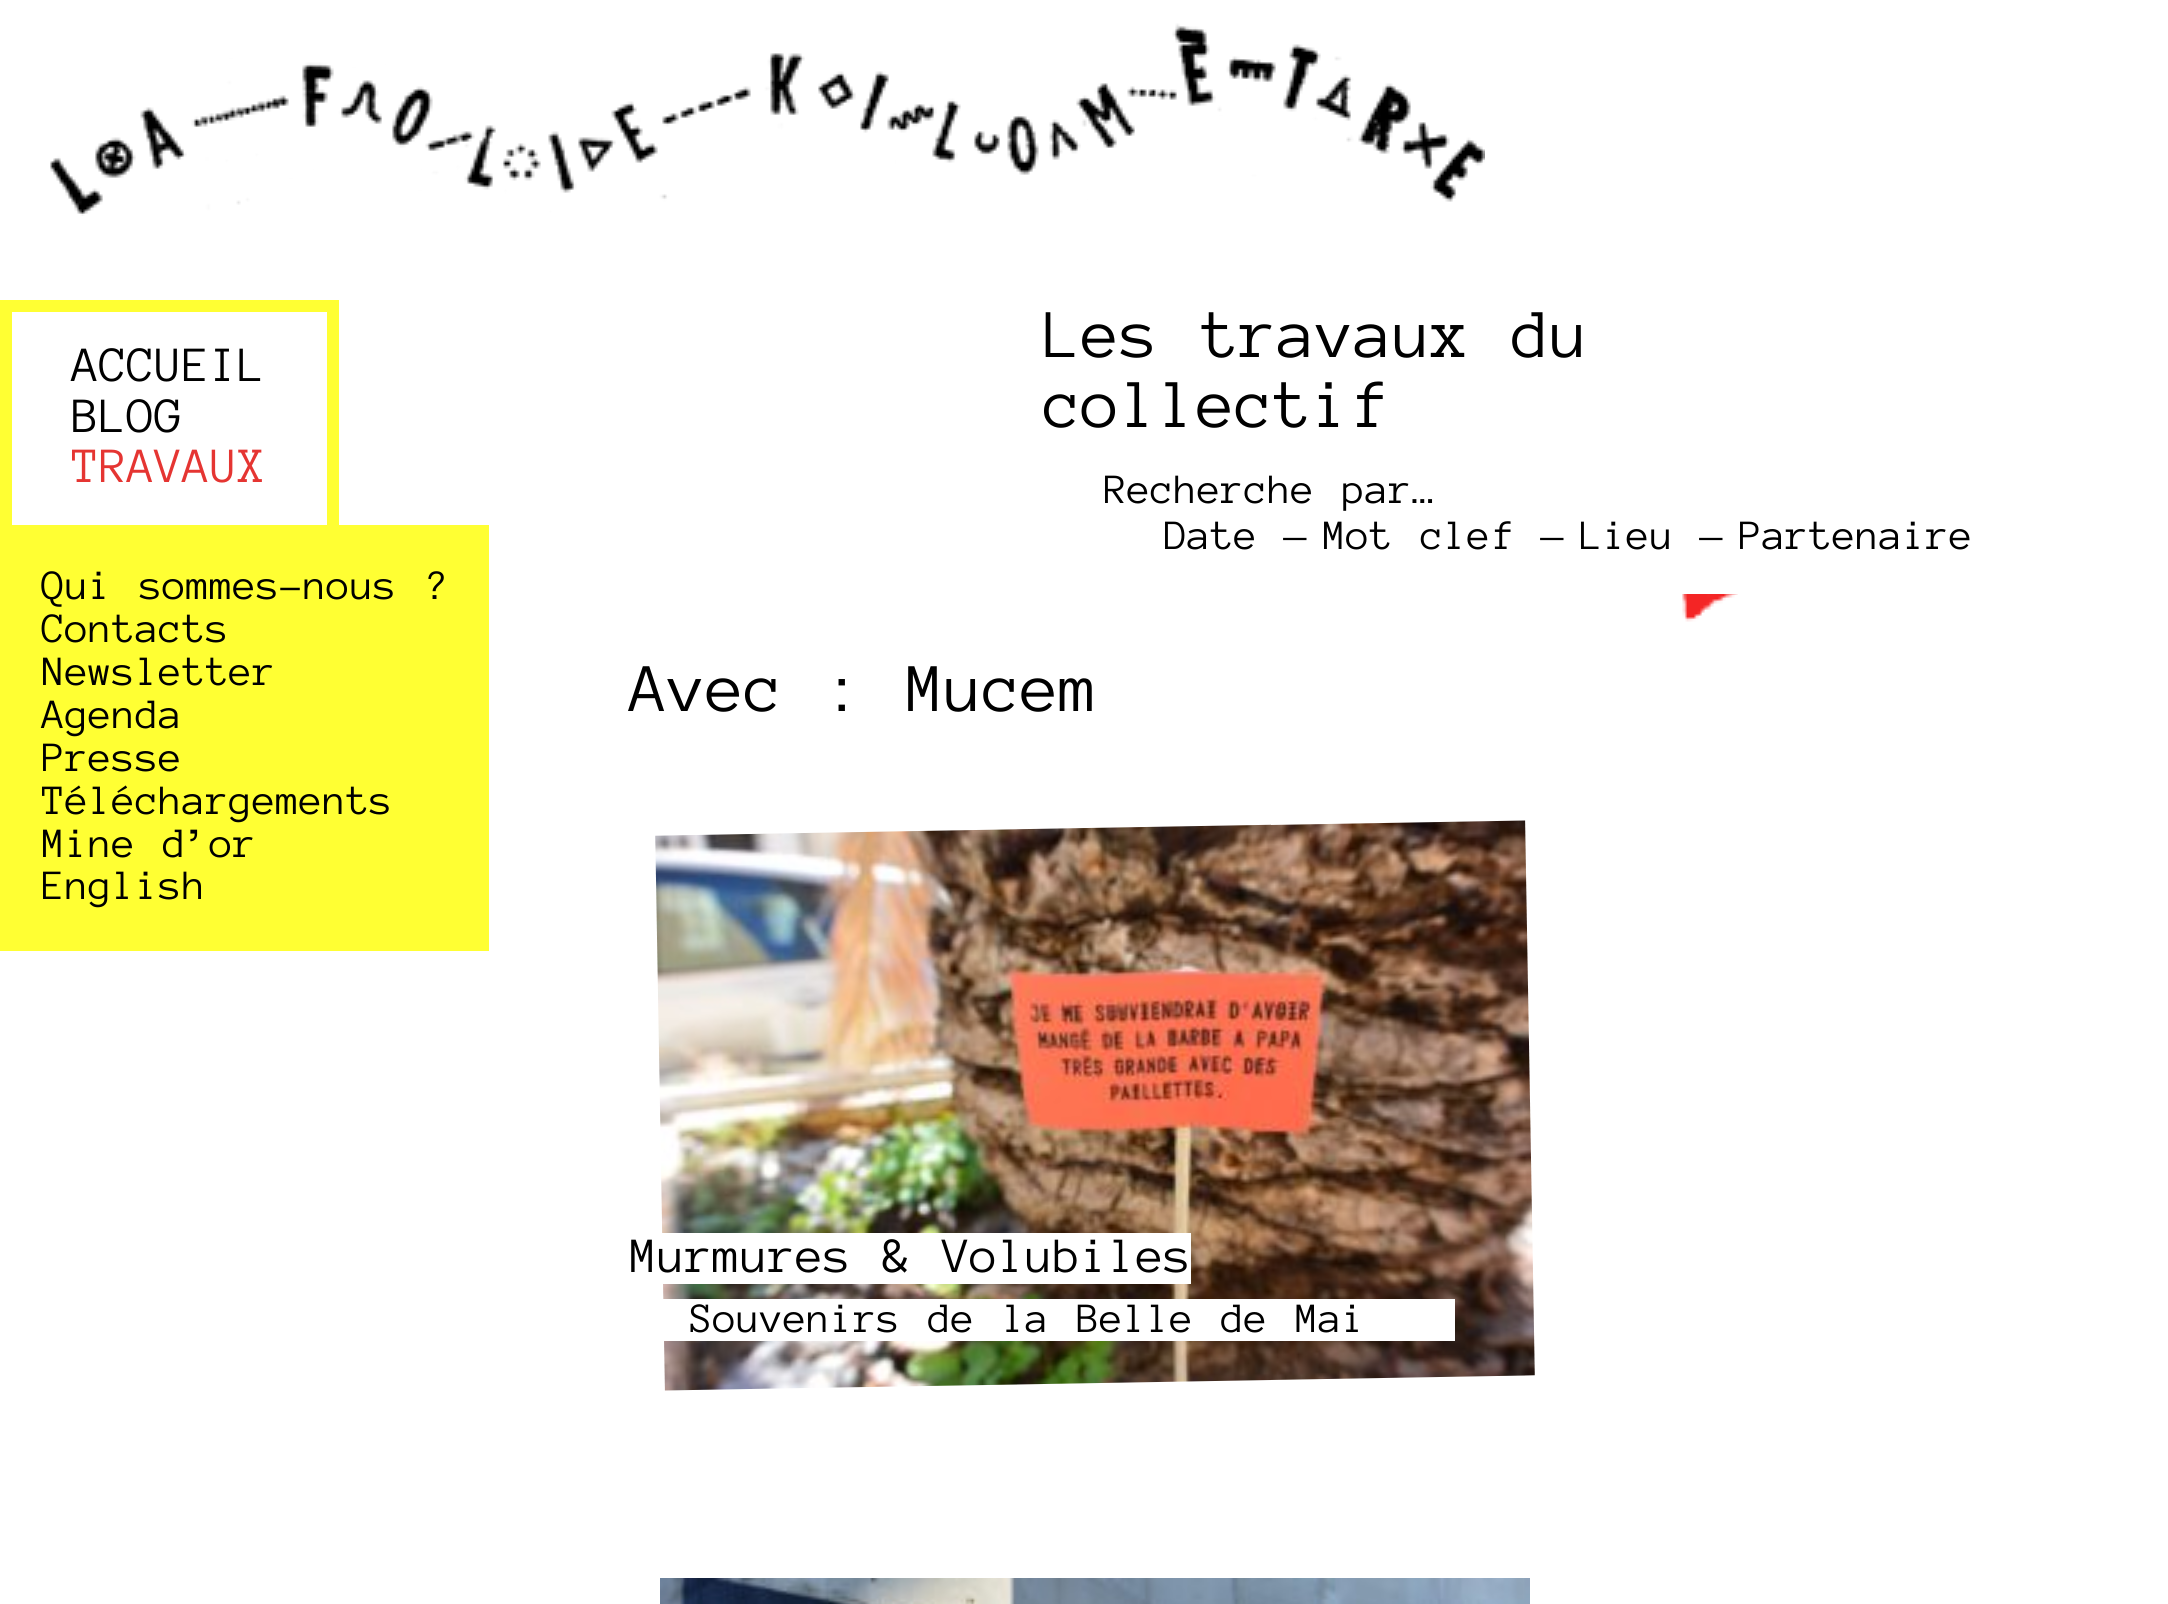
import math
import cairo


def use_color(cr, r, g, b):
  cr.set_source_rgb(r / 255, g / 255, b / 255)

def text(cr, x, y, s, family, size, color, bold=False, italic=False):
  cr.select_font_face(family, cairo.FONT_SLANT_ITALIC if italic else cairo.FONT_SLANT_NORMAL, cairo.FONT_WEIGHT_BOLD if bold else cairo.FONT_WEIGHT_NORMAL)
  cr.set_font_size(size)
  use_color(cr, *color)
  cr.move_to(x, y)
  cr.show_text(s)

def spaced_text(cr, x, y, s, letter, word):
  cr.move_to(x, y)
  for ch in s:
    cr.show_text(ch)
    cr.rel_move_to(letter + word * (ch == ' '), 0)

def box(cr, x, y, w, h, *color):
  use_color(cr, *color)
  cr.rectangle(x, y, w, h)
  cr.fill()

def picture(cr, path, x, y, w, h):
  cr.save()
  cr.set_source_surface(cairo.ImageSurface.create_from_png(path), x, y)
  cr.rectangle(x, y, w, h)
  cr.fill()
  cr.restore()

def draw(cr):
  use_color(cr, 255, 255, 255)
  cr.paint()
  picture(cr, "img_01.png", 50, 23, 1435, 193)
  cr.rectangle(6, 306, 327, 225)
  use_color(cr, 255, 255, 51)
  cr.set_line_width(12)
  cr.stroke()
  box(cr, 0, 525, 489, 426, 255, 255, 51)
  picture(cr, "img_02.png", 655, 820, 880, 571)
  box(cr, 662, 1233, 529, 51, 255, 255, 255)
  box(cr, 663, 1299, 792, 42, 255, 255, 255)
  picture(cr, "img_03.png", 660, 1578, 870, 26)
  picture(cr, "img_04.png", 1682, 594, 56, 28)
  text(cr, 72, 381, "ACCUEIL", "Anonymous Pro", 50.75, (0, 0, 0))
  text(cr, 72, 432, "BLOG", "Anonymous Pro", 50.75, (0, 0, 0))
  text(cr, 72, 482, "TRAVAUX", "Anonymous Pro", 50.75, (229, 53, 50))
  cr.set_font_size(42.9)
  use_color(cr, 0, 0, 0)
  spaced_text(cr, 42, 599, "Qui sommes-nous ?", 0, 4)
  text(cr, 42, 642, "Contacts", "Anonymous Pro", 42.9, (0, 0, 0))
  text(cr, 42, 685, "Newsletter", "Anonymous Pro", 42.9, (0, 0, 0))
  text(cr, 42, 728, "Agenda", "Anonymous Pro", 42.9, (0, 0, 0))
  text(cr, 42, 771, "Presse", "Anonymous Pro", 42.9, (0, 0, 0))
  text(cr, 42, 814, "Téléchargements", "Anonymous Pro", 42.9, (0, 0, 0))
  spaced_text(cr, 42, 857, "Mine d’or", 0, 4)
  text(cr, 42, 899, "English", "Anonymous Pro", 42.9, (0, 0, 0))
  cr.set_font_size(70.25)
  spaced_text(cr, 1044, 357, "Les travaux du", 0, 4)
  text(cr, 1044, 427, "collectif", "Anonymous Pro", 70.25, (0, 0, 0))
  cr.set_font_size(42.9)
  spaced_text(cr, 1104, 503, "Recherche par…", 0, 4)
  text(cr, 1164, 549, "Date", "Anonymous Pro", 42.9, (0, 0, 0))
  text(cr, 1285, 549, "—", "Anonymous Pro", 42.9, (0, 0, 0))
  spaced_text(cr, 1323, 549, "Mot clef", 0, 4)
  text(cr, 1542, 549, "—", "Anonymous Pro", 42.9, (0, 0, 0))
  text(cr, 1580, 549, "Lieu", "Anonymous Pro", 42.9, (0, 0, 0))
  text(cr, 1701, 549, "—", "Anonymous Pro", 42.9, (0, 0, 0))
  text(cr, 1739, 549, "Partenaire", "Anonymous Pro", 42.9, (0, 0, 0))
  cr.set_font_size(70.25)
  spaced_text(cr, 630, 711, "Avec : Mucem", 0, 4)
  cr.set_font_size(50.75)
  spaced_text(cr, 630, 1272, "Murmures & Volubiles", 0, 4)
  cr.set_font_size(42.9)
  spaced_text(cr, 690, 1332, "Souvenirs de la Belle de Mai", 0, 4)


surface = cairo.ImageSurface(cairo.FORMAT_RGB24, 2168, 1604)
cr = cairo.Context(surface)
options = cairo.FontOptions()
options.set_hint_metrics(cairo.HINT_METRICS_OFF)
options.set_hint_style(cairo.HINT_STYLE_NONE)
cr.set_font_options(options)
cr.set_miter_limit(4)
draw(cr)
surface.write_to_png("out.png")
